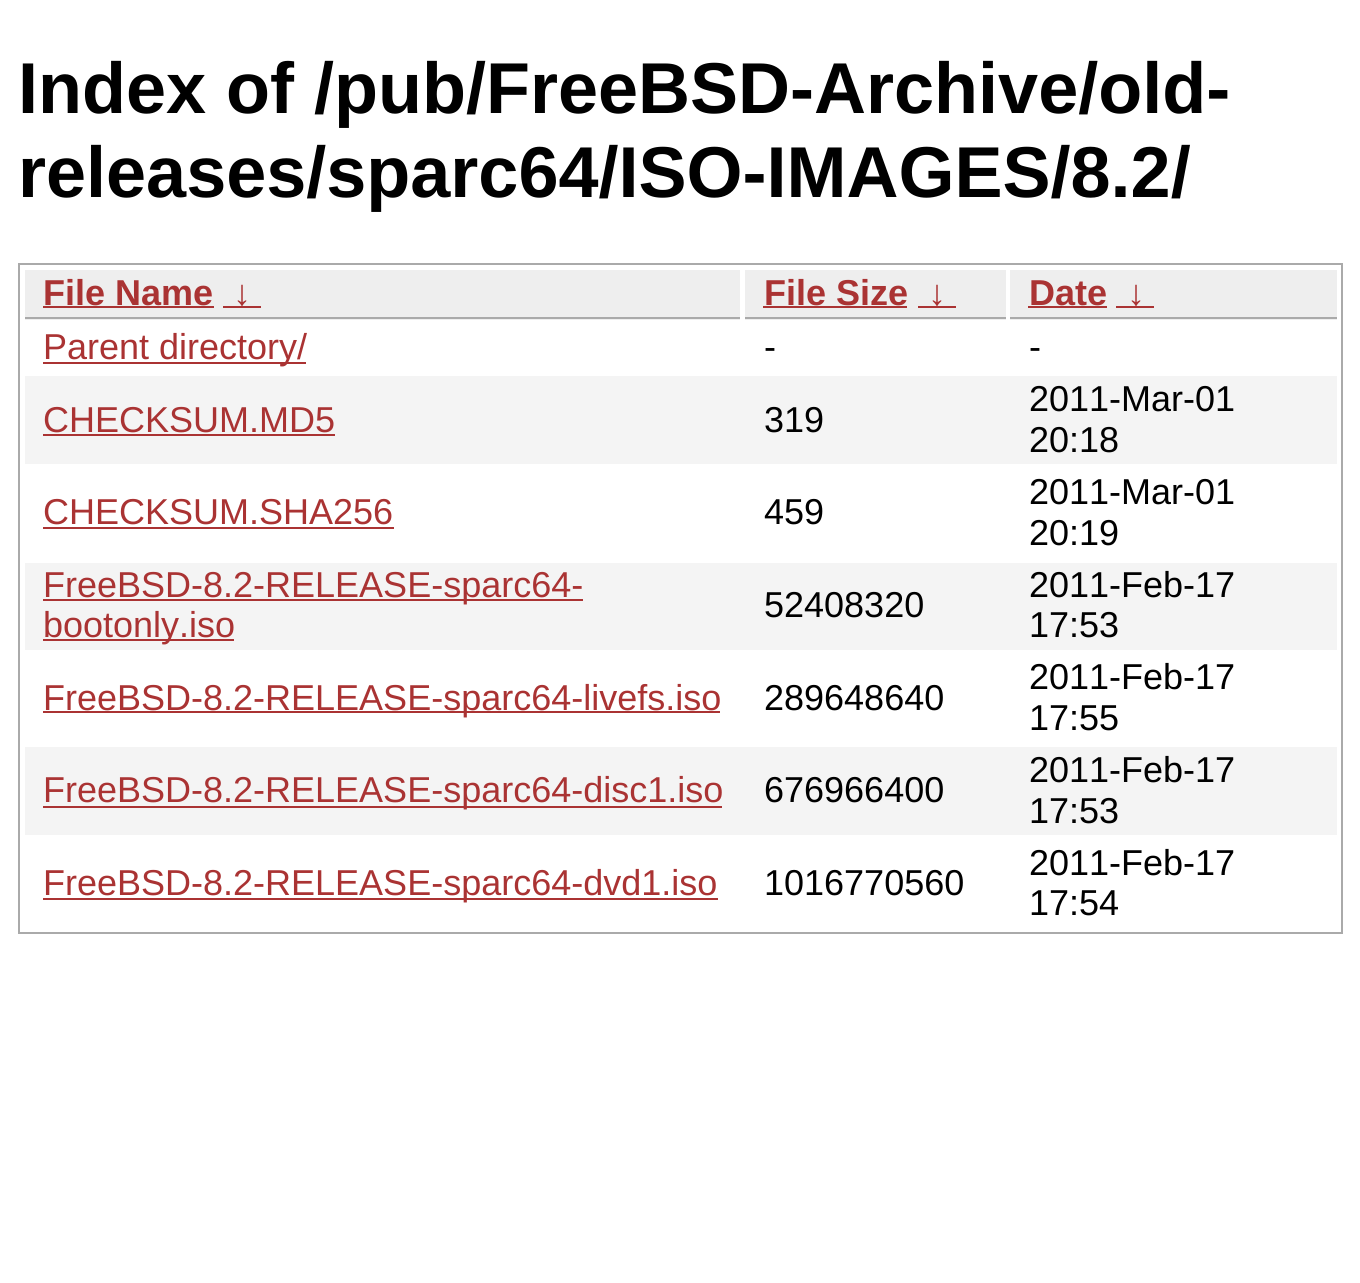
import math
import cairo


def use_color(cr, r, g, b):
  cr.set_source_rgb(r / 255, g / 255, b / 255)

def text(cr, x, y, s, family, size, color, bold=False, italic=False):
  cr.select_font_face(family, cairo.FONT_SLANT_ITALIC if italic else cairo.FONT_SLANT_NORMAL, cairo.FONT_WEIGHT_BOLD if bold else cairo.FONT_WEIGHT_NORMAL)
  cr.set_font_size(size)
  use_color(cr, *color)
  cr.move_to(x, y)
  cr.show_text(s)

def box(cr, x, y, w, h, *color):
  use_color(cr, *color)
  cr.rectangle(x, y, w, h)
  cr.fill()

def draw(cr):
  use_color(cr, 255, 255, 255)
  cr.paint()
  cr.rectangle(19, 264, 1323, 669)
  use_color(cr, 170, 170, 170)
  cr.stroke()
  box(cr, 25, 270, 715, 50, 238, 238, 238)
  box(cr, 25, 317, 715, 2, 170, 170, 170)
  box(cr, 43, 306, 171, 2, 170, 51, 51)
  box(cr, 223, 306, 38, 2, 170, 51, 51)
  box(cr, 745, 270, 261, 50, 238, 238, 238)
  box(cr, 745, 317, 261, 2, 170, 170, 170)
  box(cr, 763, 306, 144, 2, 170, 51, 51)
  box(cr, 918, 306, 38, 2, 170, 51, 51)
  box(cr, 1010, 270, 327, 50, 238, 238, 238)
  box(cr, 1010, 317, 327, 2, 170, 170, 170)
  box(cr, 1028, 306, 79, 2, 170, 51, 51)
  box(cr, 1116, 306, 38, 2, 170, 51, 51)
  box(cr, 43, 362, 263, 2, 170, 51, 51)
  box(cr, 25, 376, 1312, 88, 244, 244, 244)
  box(cr, 43, 434, 292, 2, 170, 51, 51)
  box(cr, 43, 527, 351, 2, 170, 51, 51)
  box(cr, 25, 563, 1312, 87, 244, 244, 244)
  box(cr, 43, 599, 540, 2, 170, 51, 51)
  box(cr, 43, 639, 191, 2, 170, 51, 51)
  box(cr, 43, 711, 677, 2, 170, 51, 51)
  box(cr, 25, 747, 1312, 88, 244, 244, 244)
  box(cr, 43, 806, 679, 2, 170, 51, 51)
  box(cr, 43, 898, 675, 2, 170, 51, 51)
  text(cr, 18, 113, "Index of /pub/FreeBSD-Archive/old-", "Liberation Sans", 72, (0, 0, 0), bold=True)
  text(cr, 18, 197, "releases/sparc64/ISO-IMAGES/8.2/", "Liberation Sans", 72, (0, 0, 0), bold=True)
  text(cr, 43, 305, "File Name", "Liberation Sans", 36, (170, 51, 51), bold=True)
  text(cr, 233, 305, "↓", "Liberation Sans", 36, (170, 51, 51), bold=True)
  text(cr, 764, 305, "File Size", "Liberation Sans", 36, (170, 51, 51), bold=True)
  text(cr, 928, 305, "↓", "Liberation Sans", 36, (170, 51, 51), bold=True)
  text(cr, 1029, 305, "Date", "Liberation Sans", 36, (170, 51, 51), bold=True)
  text(cr, 1127, 305, "↓", "Liberation Sans", 36, (170, 51, 51), bold=True)
  text(cr, 43, 359, "Parent directory/", "Liberation Sans", 36, (170, 51, 51))
  text(cr, 764, 359, "-", "Liberation Sans", 36, (0, 0, 0))
  text(cr, 1029, 359, "-", "Liberation Sans", 36, (0, 0, 0))
  text(cr, 43, 432, "CHECKSUM.MD5", "Liberation Sans", 36, (170, 51, 51))
  text(cr, 764, 432, "319", "Liberation Sans", 36, (0, 0, 0))
  text(cr, 1029, 411, "2011-Mar-01", "Liberation Sans", 36, (0, 0, 0))
  text(cr, 1029, 452, "20:18", "Liberation Sans", 36, (0, 0, 0))
  text(cr, 43, 524, "CHECKSUM.SHA256", "Liberation Sans", 36, (170, 51, 51))
  text(cr, 764, 524, "459", "Liberation Sans", 36, (0, 0, 0))
  text(cr, 1029, 504, "2011-Mar-01", "Liberation Sans", 36, (0, 0, 0))
  text(cr, 1029, 545, "20:19", "Liberation Sans", 36, (0, 0, 0))
  text(cr, 43, 597, "FreeBSD-8.2-RELEASE-sparc64-", "Liberation Sans", 36, (170, 51, 51))
  text(cr, 43, 637, "bootonly.iso", "Liberation Sans", 36, (170, 51, 51))
  text(cr, 764, 617, "52408320", "Liberation Sans", 36, (0, 0, 0))
  text(cr, 1029, 597, "2011-Feb-17", "Liberation Sans", 36, (0, 0, 0))
  text(cr, 1029, 637, "17:53", "Liberation Sans", 36, (0, 0, 0))
  text(cr, 43, 710, "FreeBSD-8.2-RELEASE-sparc64-livefs.iso", "Liberation Sans", 36, (170, 51, 51))
  text(cr, 764, 710, "289648640", "Liberation Sans", 36, (0, 0, 0))
  text(cr, 1029, 689, "2011-Feb-17", "Liberation Sans", 36, (0, 0, 0))
  text(cr, 1029, 730, "17:55", "Liberation Sans", 36, (0, 0, 0))
  text(cr, 43, 802, "FreeBSD-8.2-RELEASE-sparc64-disc1.iso", "Liberation Sans", 36, (170, 51, 51))
  text(cr, 764, 802, "676966400", "Liberation Sans", 36, (0, 0, 0))
  text(cr, 1029, 782, "2011-Feb-17", "Liberation Sans", 36, (0, 0, 0))
  text(cr, 1029, 823, "17:53", "Liberation Sans", 36, (0, 0, 0))
  text(cr, 43, 895, "FreeBSD-8.2-RELEASE-sparc64-dvd1.iso", "Liberation Sans", 36, (170, 51, 51))
  text(cr, 764, 895, "1016770560", "Liberation Sans", 36, (0, 0, 0))
  text(cr, 1029, 875, "2011-Feb-17", "Liberation Sans", 36, (0, 0, 0))
  text(cr, 1029, 915, "17:54", "Liberation Sans", 36, (0, 0, 0))


surface = cairo.ImageSurface(cairo.FORMAT_RGB24, 1360, 1283)
cr = cairo.Context(surface)
options = cairo.FontOptions()
options.set_hint_metrics(cairo.HINT_METRICS_OFF)
options.set_hint_style(cairo.HINT_STYLE_NONE)
cr.set_font_options(options)
cr.set_miter_limit(4)
draw(cr)
surface.write_to_png("out.png")
